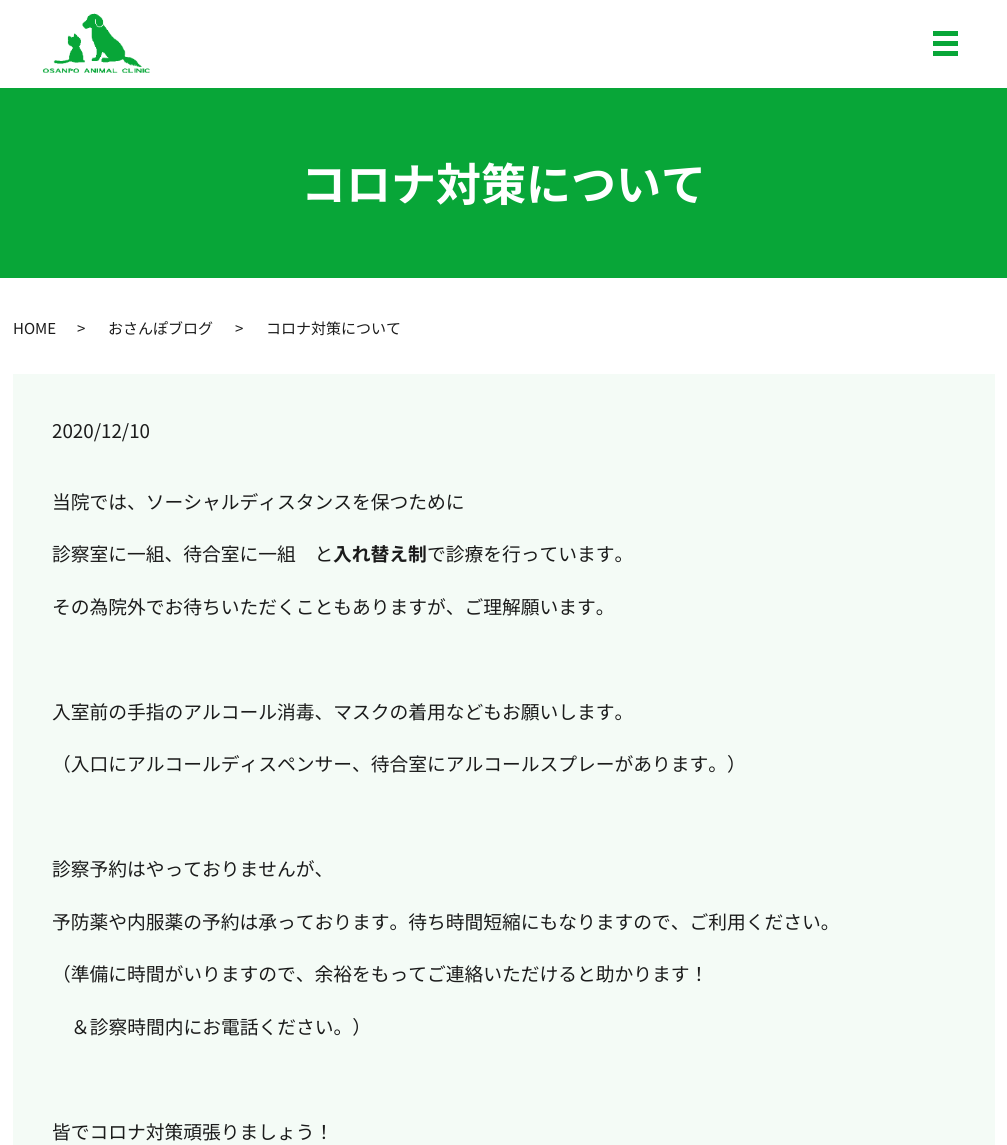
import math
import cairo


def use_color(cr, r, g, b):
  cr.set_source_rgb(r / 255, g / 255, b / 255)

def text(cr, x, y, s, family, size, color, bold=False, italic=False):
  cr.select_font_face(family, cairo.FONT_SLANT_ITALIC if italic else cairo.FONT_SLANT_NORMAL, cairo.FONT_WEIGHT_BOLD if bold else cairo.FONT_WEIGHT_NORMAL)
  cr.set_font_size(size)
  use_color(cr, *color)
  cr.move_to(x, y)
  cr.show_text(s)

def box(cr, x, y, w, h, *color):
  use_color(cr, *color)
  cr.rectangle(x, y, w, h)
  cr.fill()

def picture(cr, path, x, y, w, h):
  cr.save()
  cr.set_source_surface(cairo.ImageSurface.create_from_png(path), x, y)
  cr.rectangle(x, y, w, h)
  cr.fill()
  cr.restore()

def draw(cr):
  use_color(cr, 255, 255, 255)
  cr.paint()
  picture(cr, "img_01.png", 42, 13, 108, 60)
  box(cr, 933, 31, 25, 5, 8, 166, 56)
  box(cr, 933, 41, 25, 5, 8, 166, 56)
  box(cr, 933, 51, 25, 5, 8, 166, 56)
  box(cr, 0, 88, 1007, 190, 8, 166, 56)
  box(cr, 13, 374, 982, 771, 244, 251, 246)
  text(cr, 301, 201, "コロナ対策について", "Noto Sans JP", 45, (255, 255, 255), bold=True)
  text(cr, 13, 334, "HOME", "Noto Sans JP", 15, (27, 27, 27))
  text(cr, 77, 334, ">", "Noto Sans JP", 15, (27, 27, 27))
  text(cr, 108, 334, "おさんぽブログ", "Noto Sans JP", 15, (27, 27, 27))
  text(cr, 235, 334, ">", "Noto Sans JP", 15, (27, 27, 27))
  text(cr, 266, 334, "コロナ対策について", "Noto Sans JP", 15, (27, 27, 27))
  text(cr, 52, 438, "2020/12/10", "Noto Sans JP", 18.75, (27, 27, 27))
  text(cr, 52, 509, "当院では、ソーシャルディスタンスを保つために", "Noto Sans JP", 18.75, (27, 27, 27))
  text(cr, 52, 561, "診察室に一組、待合室に一組　と", "Noto Sans JP", 18.75, (27, 27, 27))
  text(cr, 333, 561, "入れ替え制", "Noto Sans JP", 18.75, (27, 27, 27), bold=True)
  text(cr, 427, 561, "で診療を行っています。", "Noto Sans JP", 18.75, (27, 27, 27))
  text(cr, 52, 614, "その為院外でお待ちいただくこともありますが、ご理解願います。", "Noto Sans JP", 18.75, (27, 27, 27))
  text(cr, 52, 719, "入室前の手指のアルコール消毒、マスクの着用などもお願いします。", "Noto Sans JP", 18.75, (27, 27, 27))
  text(cr, 52, 771, "（入口にアルコールディスペンサー、待合室にアルコールスプレーがあります。）", "Noto Sans JP", 18.75, (27, 27, 27))
  text(cr, 52, 876, "診察予約はやっておりませんが、", "Noto Sans JP", 18.75, (27, 27, 27))
  text(cr, 52, 929, "予防薬や内服薬の予約は承っております。待ち時間短縮にもなりますので、ご利用ください。", "Noto Sans JP", 18.75, (27, 27, 27))
  text(cr, 52, 981, "（準備に時間がいりますので、余裕をもってご連絡いただけると助かります！", "Noto Sans JP", 18.75, (27, 27, 27))
  text(cr, 71, 1034, "＆診察時間内にお電話ください。）", "Noto Sans JP", 18.75, (27, 27, 27))
  text(cr, 52, 1139, "皆でコロナ対策頑張りましょう！", "Noto Sans JP", 18.75, (27, 27, 27))


surface = cairo.ImageSurface(cairo.FORMAT_RGB24, 1007, 1145)
cr = cairo.Context(surface)
options = cairo.FontOptions()
options.set_hint_metrics(cairo.HINT_METRICS_OFF)
options.set_hint_style(cairo.HINT_STYLE_NONE)
cr.set_font_options(options)
cr.set_miter_limit(4)
draw(cr)
surface.write_to_png("out.png")
